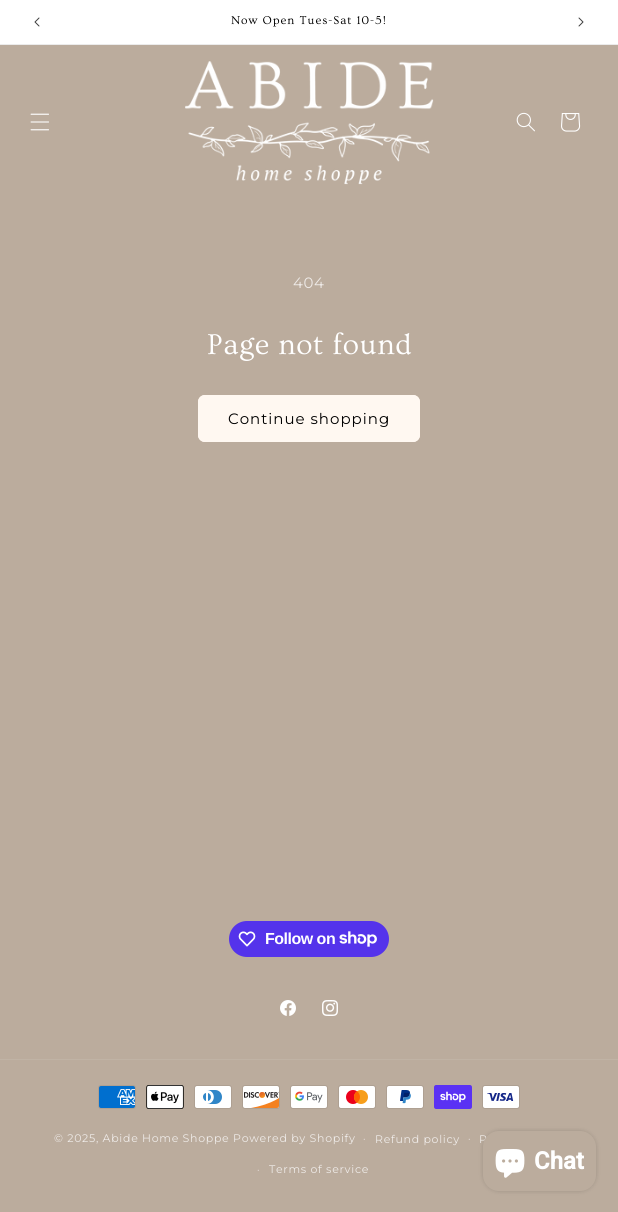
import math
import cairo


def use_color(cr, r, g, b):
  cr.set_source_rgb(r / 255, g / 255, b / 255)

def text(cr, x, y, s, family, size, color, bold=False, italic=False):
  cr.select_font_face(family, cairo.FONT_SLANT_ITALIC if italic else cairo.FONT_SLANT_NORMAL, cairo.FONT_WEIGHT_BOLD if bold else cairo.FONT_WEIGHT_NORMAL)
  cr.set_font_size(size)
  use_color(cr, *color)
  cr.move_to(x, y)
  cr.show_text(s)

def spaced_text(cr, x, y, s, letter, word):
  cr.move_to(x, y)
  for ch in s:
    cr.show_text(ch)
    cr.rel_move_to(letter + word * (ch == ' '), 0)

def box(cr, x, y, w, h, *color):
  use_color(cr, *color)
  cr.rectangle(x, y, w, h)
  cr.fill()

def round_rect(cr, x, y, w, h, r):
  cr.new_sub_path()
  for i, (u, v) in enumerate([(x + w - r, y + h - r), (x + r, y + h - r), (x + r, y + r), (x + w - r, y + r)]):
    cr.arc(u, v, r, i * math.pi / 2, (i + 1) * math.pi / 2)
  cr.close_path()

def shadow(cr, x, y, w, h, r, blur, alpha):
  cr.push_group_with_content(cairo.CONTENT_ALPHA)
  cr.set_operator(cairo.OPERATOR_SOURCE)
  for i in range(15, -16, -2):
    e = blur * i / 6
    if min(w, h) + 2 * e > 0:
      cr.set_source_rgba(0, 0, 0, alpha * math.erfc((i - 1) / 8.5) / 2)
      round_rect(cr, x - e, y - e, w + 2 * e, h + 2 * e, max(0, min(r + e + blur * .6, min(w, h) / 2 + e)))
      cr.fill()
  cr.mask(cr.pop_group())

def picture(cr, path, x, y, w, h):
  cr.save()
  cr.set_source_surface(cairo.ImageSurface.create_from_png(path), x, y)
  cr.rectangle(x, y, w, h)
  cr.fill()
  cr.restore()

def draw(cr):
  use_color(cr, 187, 172, 157)
  cr.paint()
  box(cr, 0, 0, 618, 44, 255, 255, 255)
  box(cr, 0, 44, 618, 1, 235, 235, 235)
  picture(cr, "img_01.png", 34, 17, 6, 10)
  picture(cr, "img_02.png", 578, 17, 6, 10)
  picture(cr, "img_03.png", 30, 113, 19, 18)
  picture(cr, "img_04.png", 185, 61, 249, 124)
  picture(cr, "img_05.png", 516, 112, 19, 20)
  picture(cr, "img_06.png", 561, 113, 20, 19)
  use_color(cr, 255, 248, 241)
  round_rect(cr, 198, 395, 222, 47, 7)
  cr.fill()
  round_rect(cr, 198.5, 395.5, 221, 46, 6.5)
  cr.set_line_width(1)
  cr.stroke()
  use_color(cr, 84, 51, 235)
  round_rect(cr, 229, 921, 160, 36, 18)
  cr.fill()
  picture(cr, "img_07.png", 238, 931, 18, 16)
  picture(cr, "img_08.png", 339, 931, 38, 16)
  picture(cr, "img_09.png", 280, 1000, 16, 16)
  picture(cr, "img_10.png", 322, 1000, 16, 16)
  box(cr, 0, 1059, 618, 1, 192, 179, 165)
  picture(cr, "img_11.png", 98, 1085, 38, 24)
  picture(cr, "img_12.png", 146, 1085, 38, 24)
  picture(cr, "img_13.png", 194, 1085, 38, 24)
  picture(cr, "img_14.png", 242, 1085, 38, 24)
  picture(cr, "img_15.png", 290, 1085, 38, 24)
  picture(cr, "img_16.png", 338, 1085, 38, 24)
  picture(cr, "img_17.png", 386, 1085, 38, 24)
  picture(cr, "img_18.png", 434, 1085, 38, 24)
  picture(cr, "img_19.png", 482, 1085, 38, 24)
  use_color(cr, 0, 0, 0)
  shadow(cr, 483, 1131, 113, 60, 16, 2.5, 0.15)
  cr.select_font_face("Ovo")
  cr.set_font_size(12)
  use_color(cr, 0, 0, 0)
  spaced_text(cr, 231, 24, "Now Open Tues-Sat 10-5!", 1, 0)
  cr.select_font_face("Montserrat Thin")
  cr.set_font_size(15)
  use_color(cr, 238, 234, 231)
  spaced_text(cr, 293, 288, "404", 0.6, 0)
  cr.select_font_face("Ovo")
  cr.set_font_size(30)
  use_color(cr, 255, 255, 255)
  spaced_text(cr, 207, 354, "Page not found", 0.6, 0)
  cr.select_font_face("Montserrat Thin")
  cr.set_font_size(15)
  use_color(cr, 0, 0, 0)
  spaced_text(cr, 228, 424, "Continue shopping", 1, 0)
  cr.select_font_face("Liberation Sans", cairo.FONT_SLANT_NORMAL, cairo.FONT_WEIGHT_BOLD)
  cr.set_font_size(16)
  use_color(cr, 255, 255, 255)
  spaced_text(cr, 265, 944, "Follow on", -0.5, 0)
  cr.select_font_face("Montserrat Thin")
  cr.set_font_size(11)
  use_color(cr, 238, 234, 231)
  spaced_text(cr, 54, 1142, "© 2025, Abide Home Shoppe Powered by Shopify", 0.7, 0)
  cr.set_font_size(10)
  spaced_text(cr, 363, 1142, "·", 0.7, 0)
  cr.set_font_size(11)
  spaced_text(cr, 375, 1143, "Refund policy", 0.7, 0)
  cr.set_font_size(10)
  spaced_text(cr, 468, 1142, "·", 0.7, 0)
  cr.set_font_size(11)
  spaced_text(cr, 479, 1143, "P", 0.7, 0)
  cr.set_font_size(10)
  spaced_text(cr, 257, 1173, "·", 0.7, 0)
  cr.set_font_size(11)
  spaced_text(cr, 269, 1173, "Terms of service", 0.7, 0)
  use_color(cr, 187, 172, 157)
  round_rect(cr, 483, 1131, 113, 60, 16)
  cr.fill()
  picture(cr, "img_20.png", 495, 1149, 30, 29)
  text(cr, 534, 1169, "Chat", "Roboto", 24, (255, 255, 255), bold=True)


surface = cairo.ImageSurface(cairo.FORMAT_RGB24, 618, 1212)
cr = cairo.Context(surface)
options = cairo.FontOptions()
options.set_hint_metrics(cairo.HINT_METRICS_OFF)
options.set_hint_style(cairo.HINT_STYLE_NONE)
cr.set_font_options(options)
cr.set_miter_limit(4)
draw(cr)
surface.write_to_png("out.png")
